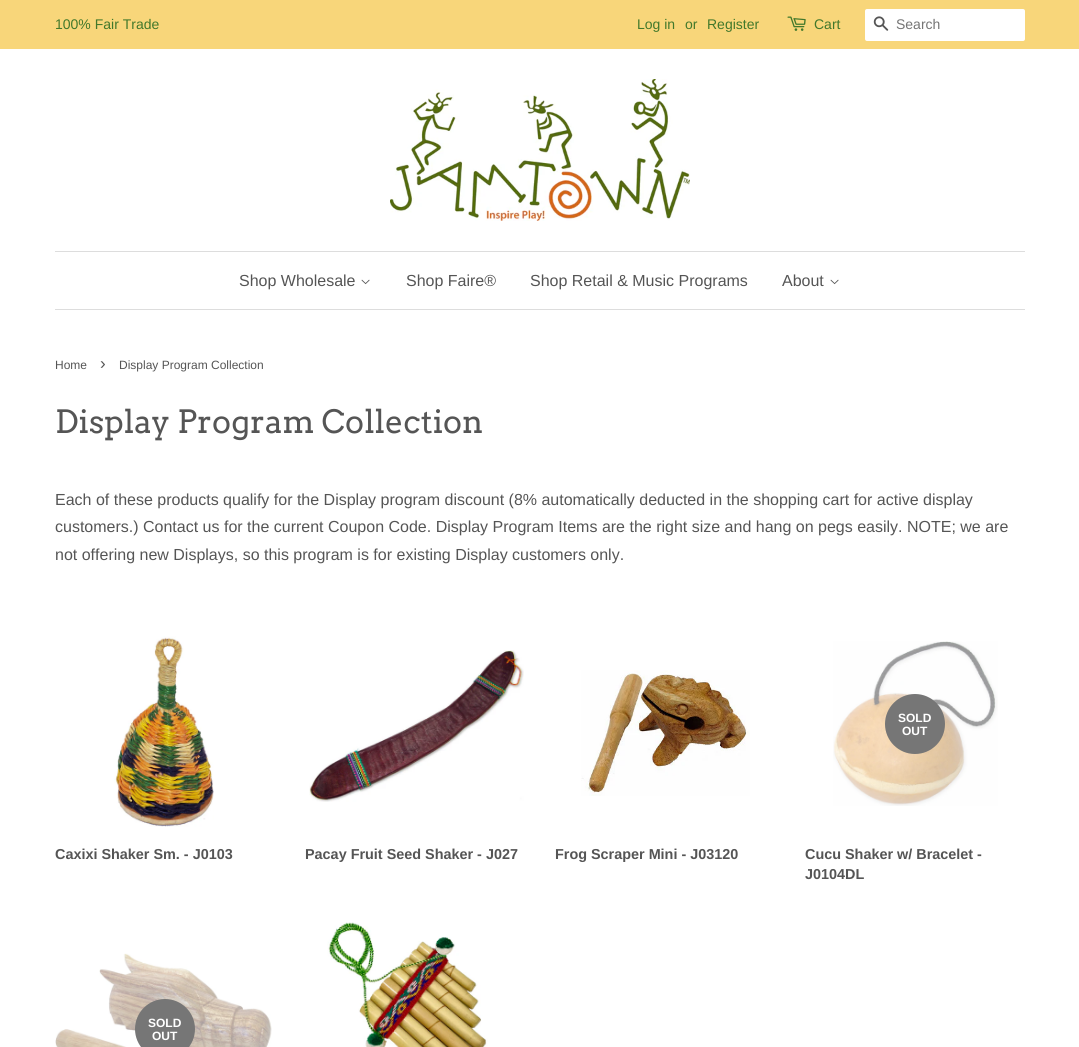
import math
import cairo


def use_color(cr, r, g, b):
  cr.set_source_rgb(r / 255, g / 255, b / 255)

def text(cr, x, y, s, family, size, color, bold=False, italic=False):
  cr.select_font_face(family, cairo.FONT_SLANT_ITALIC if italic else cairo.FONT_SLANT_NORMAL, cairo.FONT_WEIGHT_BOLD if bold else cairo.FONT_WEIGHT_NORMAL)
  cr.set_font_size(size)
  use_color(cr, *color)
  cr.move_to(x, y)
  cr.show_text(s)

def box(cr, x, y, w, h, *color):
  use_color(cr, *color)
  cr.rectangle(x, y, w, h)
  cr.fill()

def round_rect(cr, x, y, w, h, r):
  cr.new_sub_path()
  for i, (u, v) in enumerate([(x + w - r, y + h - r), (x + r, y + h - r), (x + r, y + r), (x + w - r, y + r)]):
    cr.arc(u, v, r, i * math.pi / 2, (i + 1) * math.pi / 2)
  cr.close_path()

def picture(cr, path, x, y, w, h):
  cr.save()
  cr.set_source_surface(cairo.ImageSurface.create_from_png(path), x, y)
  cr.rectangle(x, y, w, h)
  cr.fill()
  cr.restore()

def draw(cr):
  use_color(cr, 255, 255, 255)
  cr.paint()
  box(cr, 0, 0, 1079, 49, 248, 214, 122)
  picture(cr, "img_01.png", 787, 16, 19, 15)
  use_color(cr, 255, 255, 255)
  round_rect(cr, 865, 9, 160, 32, 2)
  cr.fill()
  picture(cr, "img_02.png", 873, 16, 16, 15)
  picture(cr, "img_03.png", 390, 79, 300, 142)
  box(cr, 55, 251, 970, 1, 221, 221, 221)
  box(cr, 55, 309, 970, 1, 221, 221, 221)
  picture(cr, "img_04.png", 361, 279, 9, 6)
  picture(cr, "img_04.png", 830, 279, 9, 6)
  picture(cr, "img_05.png", 114, 636, 100, 191)
  picture(cr, "img_06.png", 309, 650, 215, 152)
  picture(cr, "img_07.png", 581, 670, 169, 126)
  picture(cr, "img_08.png", 833, 641, 165, 165)
  use_color(cr, 118, 118, 118)
  cr.arc(915, 724, 30, 0, 2 * math.pi)
  cr.fill()
  picture(cr, "img_09.png", 55, 953, 217, 94)
  cr.arc(165, 1029, 30, 0, 2 * math.pi)
  cr.fill()
  picture(cr, "img_10.png", 327, 922, 161, 125)
  text(cr, 55, 29, "100% Fair Trade", "Liberation Sans", 14, (66, 120, 43))
  text(cr, 637, 29, "Log in", "Liberation Sans", 14, (66, 120, 43))
  text(cr, 685, 29, "or", "Liberation Sans", 14, (66, 120, 43))
  text(cr, 707, 29, "Register", "Liberation Sans", 14, (66, 120, 43))
  text(cr, 814, 29, "Cart", "Liberation Sans", 14, (66, 120, 43))
  text(cr, 896, 29, "Search", "Liberation Sans", 14, (117, 117, 117))
  text(cr, 239, 286, "Shop Wholesale", "Liberation Sans", 16, (85, 85, 85))
  text(cr, 406, 286, "Shop Faire®", "Liberation Sans", 16, (85, 85, 85))
  text(cr, 530, 286, "Shop Retail & Music Programs", "Liberation Sans", 16, (85, 85, 85))
  text(cr, 782, 286, "About", "Liberation Sans", 16, (85, 85, 85))
  text(cr, 55, 369, "Home", "Liberation Sans", 12, (85, 85, 85))
  text(cr, 100, 369, "›", "Liberation Sans", 17, (85, 85, 85))
  text(cr, 119, 369, "Display Program Collection", "Liberation Sans", 12, (85, 85, 85))
  text(cr, 55, 433, "Display Program Collection", "Arvo", 32, (85, 85, 85))
  text(cr, 55, 505, "Each of these products qualify for the Display program discount (8% automatically deducted in the shopping cart for active display", "Liberation Sans", 16, (85, 85, 85))
  text(cr, 55, 532, "customers.) Contact us for the current Coupon Code. Display Program Items are the right size and hang on pegs easily. NOTE; we are", "Liberation Sans", 16, (85, 85, 85))
  text(cr, 55, 560, "not offering new Displays, so this program is for existing Display customers only.", "Liberation Sans", 16, (85, 85, 85))
  text(cr, 55, 859, "Caxixi Shaker Sm. - J0103", "Liberation Sans", 14.4, (85, 85, 85), bold=True)
  text(cr, 305, 859, "Pacay Fruit Seed Shaker - J027", "Liberation Sans", 14.4, (85, 85, 85), bold=True)
  text(cr, 555, 859, "Frog Scraper Mini - J03120", "Liberation Sans", 14.4, (85, 85, 85), bold=True)
  text(cr, 898, 722, "SOLD", "Liberation Sans", 12, (255, 255, 255), bold=True)
  text(cr, 902, 735, "OUT", "Liberation Sans", 12, (255, 255, 255), bold=True)
  text(cr, 805, 859, "Cucu Shaker w/ Bracelet -", "Liberation Sans", 14.4, (85, 85, 85), bold=True)
  text(cr, 805, 879, "J0104DL", "Liberation Sans", 14.4, (85, 85, 85), bold=True)
  text(cr, 148, 1027, "SOLD", "Liberation Sans", 12, (255, 255, 255), bold=True)
  text(cr, 152, 1040, "OUT", "Liberation Sans", 12, (255, 255, 255), bold=True)


surface = cairo.ImageSurface(cairo.FORMAT_RGB24, 1079, 1047)
cr = cairo.Context(surface)
options = cairo.FontOptions()
options.set_hint_metrics(cairo.HINT_METRICS_OFF)
options.set_hint_style(cairo.HINT_STYLE_NONE)
cr.set_font_options(options)
cr.set_miter_limit(4)
draw(cr)
surface.write_to_png("out.png")
